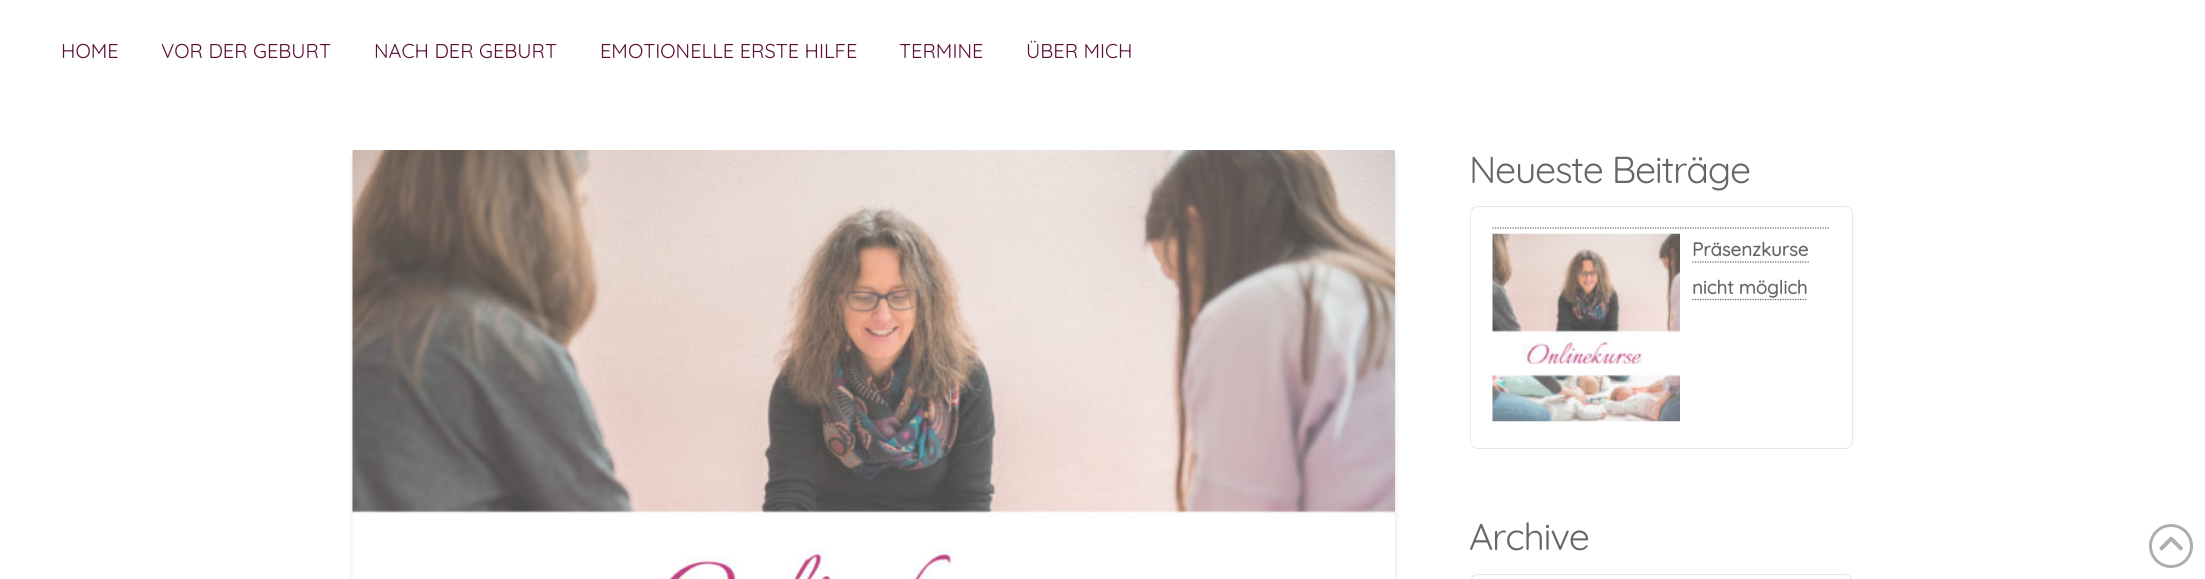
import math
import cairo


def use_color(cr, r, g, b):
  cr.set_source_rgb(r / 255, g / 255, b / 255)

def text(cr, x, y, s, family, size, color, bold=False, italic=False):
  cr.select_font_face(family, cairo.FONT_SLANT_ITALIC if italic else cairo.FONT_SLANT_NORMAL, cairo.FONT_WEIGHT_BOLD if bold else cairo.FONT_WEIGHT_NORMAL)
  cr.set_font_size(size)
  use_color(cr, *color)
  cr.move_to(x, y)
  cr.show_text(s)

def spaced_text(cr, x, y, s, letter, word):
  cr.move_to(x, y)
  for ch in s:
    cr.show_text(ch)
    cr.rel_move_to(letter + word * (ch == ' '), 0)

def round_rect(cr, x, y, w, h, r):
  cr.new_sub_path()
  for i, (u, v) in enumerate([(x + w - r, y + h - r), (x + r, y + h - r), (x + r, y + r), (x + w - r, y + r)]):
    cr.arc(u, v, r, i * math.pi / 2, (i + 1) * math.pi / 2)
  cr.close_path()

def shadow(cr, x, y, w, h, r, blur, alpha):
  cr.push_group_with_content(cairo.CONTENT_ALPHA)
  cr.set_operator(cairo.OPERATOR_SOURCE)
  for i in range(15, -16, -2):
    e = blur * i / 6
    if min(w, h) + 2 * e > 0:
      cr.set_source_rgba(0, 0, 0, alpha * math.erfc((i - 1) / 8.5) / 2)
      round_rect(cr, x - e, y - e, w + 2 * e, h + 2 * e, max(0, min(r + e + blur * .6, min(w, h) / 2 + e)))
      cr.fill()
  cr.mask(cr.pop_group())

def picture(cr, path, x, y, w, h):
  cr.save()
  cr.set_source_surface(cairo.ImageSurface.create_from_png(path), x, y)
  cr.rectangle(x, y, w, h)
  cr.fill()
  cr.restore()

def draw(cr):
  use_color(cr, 255, 255, 255)
  cr.paint()
  use_color(cr, 0, 0, 0)
  shadow(cr, 353, 158, 1032, 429, 0, 2.5, 0.13)
  shadow(cr, 363, 158, 1032, 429, 0, 2.5, 0.13)
  picture(cr, "img_01.png", 352, 150, 1043, 429)
  round_rect(cr, 1470.5, 206.5, 382, 242, 7.5)
  use_color(cr, 230, 230, 230)
  cr.set_line_width(1)
  cr.stroke()
  cr.save()
  cr.set_fill_rule(cairo.FILL_RULE_EVEN_ODD)
  cr.new_path()
  cr.move_to(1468, 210)
  cr.line_to(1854, 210)
  cr.line_to(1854, 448)
  cr.line_to(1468, 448)
  cr.close_path()
  cr.move_to(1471, 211)
  cr.line_to(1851, 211)
  cr.line_to(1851, 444)
  cr.line_to(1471, 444)
  cr.close_path()
  cr.clip()
  use_color(cr, 255, 255, 255)
  shadow(cr, 1471, 213, 380, 232, 0, 0.5, 0.95)
  cr.restore()
  cr.new_path()
  cr.move_to(1492.5, 228)
  cr.line_to(1830, 228)
  use_color(cr, 101, 102, 104)
  cr.set_line_width(1.2)
  cr.set_dash([1.25, 1.25])
  cr.stroke()
  picture(cr, "img_02.png", 1492, 233, 188, 189)
  cr.new_path()
  cr.move_to(1692.5, 262)
  cr.line_to(1809, 262)
  cr.stroke()
  cr.new_path()
  cr.move_to(1692.5, 299.5)
  cr.line_to(1807.5, 299.5)
  cr.stroke()
  round_rect(cr, 1470.5, 574.5, 382, 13, 7.5)
  use_color(cr, 230, 230, 230)
  cr.set_line_width(1)
  cr.set_dash([])
  cr.stroke()
  cr.arc(2171, 546, 20.5, 0, 2 * math.pi)
  use_color(cr, 174, 174, 174)
  cr.set_line_width(3)
  cr.stroke()
  picture(cr, "img_03.png", 2159, 536, 24, 15)
  text(cr, 61, 58, "HOME", "Quicksand Light", 20, (92, 14, 53))
  text(cr, 161, 58, "VOR DER GEBURT", "Quicksand Light", 20, (92, 14, 53))
  text(cr, 374, 58, "NACH DER GEBURT", "Quicksand Light", 20, (92, 14, 53))
  text(cr, 600, 58, "EMOTIONELLE ERSTE HILFE", "Quicksand Light", 20, (92, 14, 53))
  text(cr, 899, 58, "TERMINE", "Quicksand Light", 20, (92, 14, 53))
  text(cr, 1026, 58, "ÜBER MICH", "Quicksand Light", 20, (92, 14, 53))
  cr.set_font_size(37.5)
  use_color(cr, 101, 102, 104)
  spaced_text(cr, 1469, 183, "Neueste Beiträge", -1.25, 0)
  text(cr, 1692, 256, "Präsenzkurse", "Quicksand", 18.75, (101, 102, 104), bold=True)
  text(cr, 1692, 294, "nicht möglich", "Quicksand", 18.75, (101, 102, 104), bold=True)
  cr.select_font_face("Quicksand Light")
  cr.set_font_size(37.5)
  spaced_text(cr, 1469, 550, "Archive", -1.25, 0)


surface = cairo.ImageSurface(cairo.FORMAT_RGB24, 2205, 579)
cr = cairo.Context(surface)
options = cairo.FontOptions()
options.set_hint_metrics(cairo.HINT_METRICS_OFF)
options.set_hint_style(cairo.HINT_STYLE_NONE)
cr.set_font_options(options)
cr.set_miter_limit(4)
draw(cr)
surface.write_to_png("out.png")
